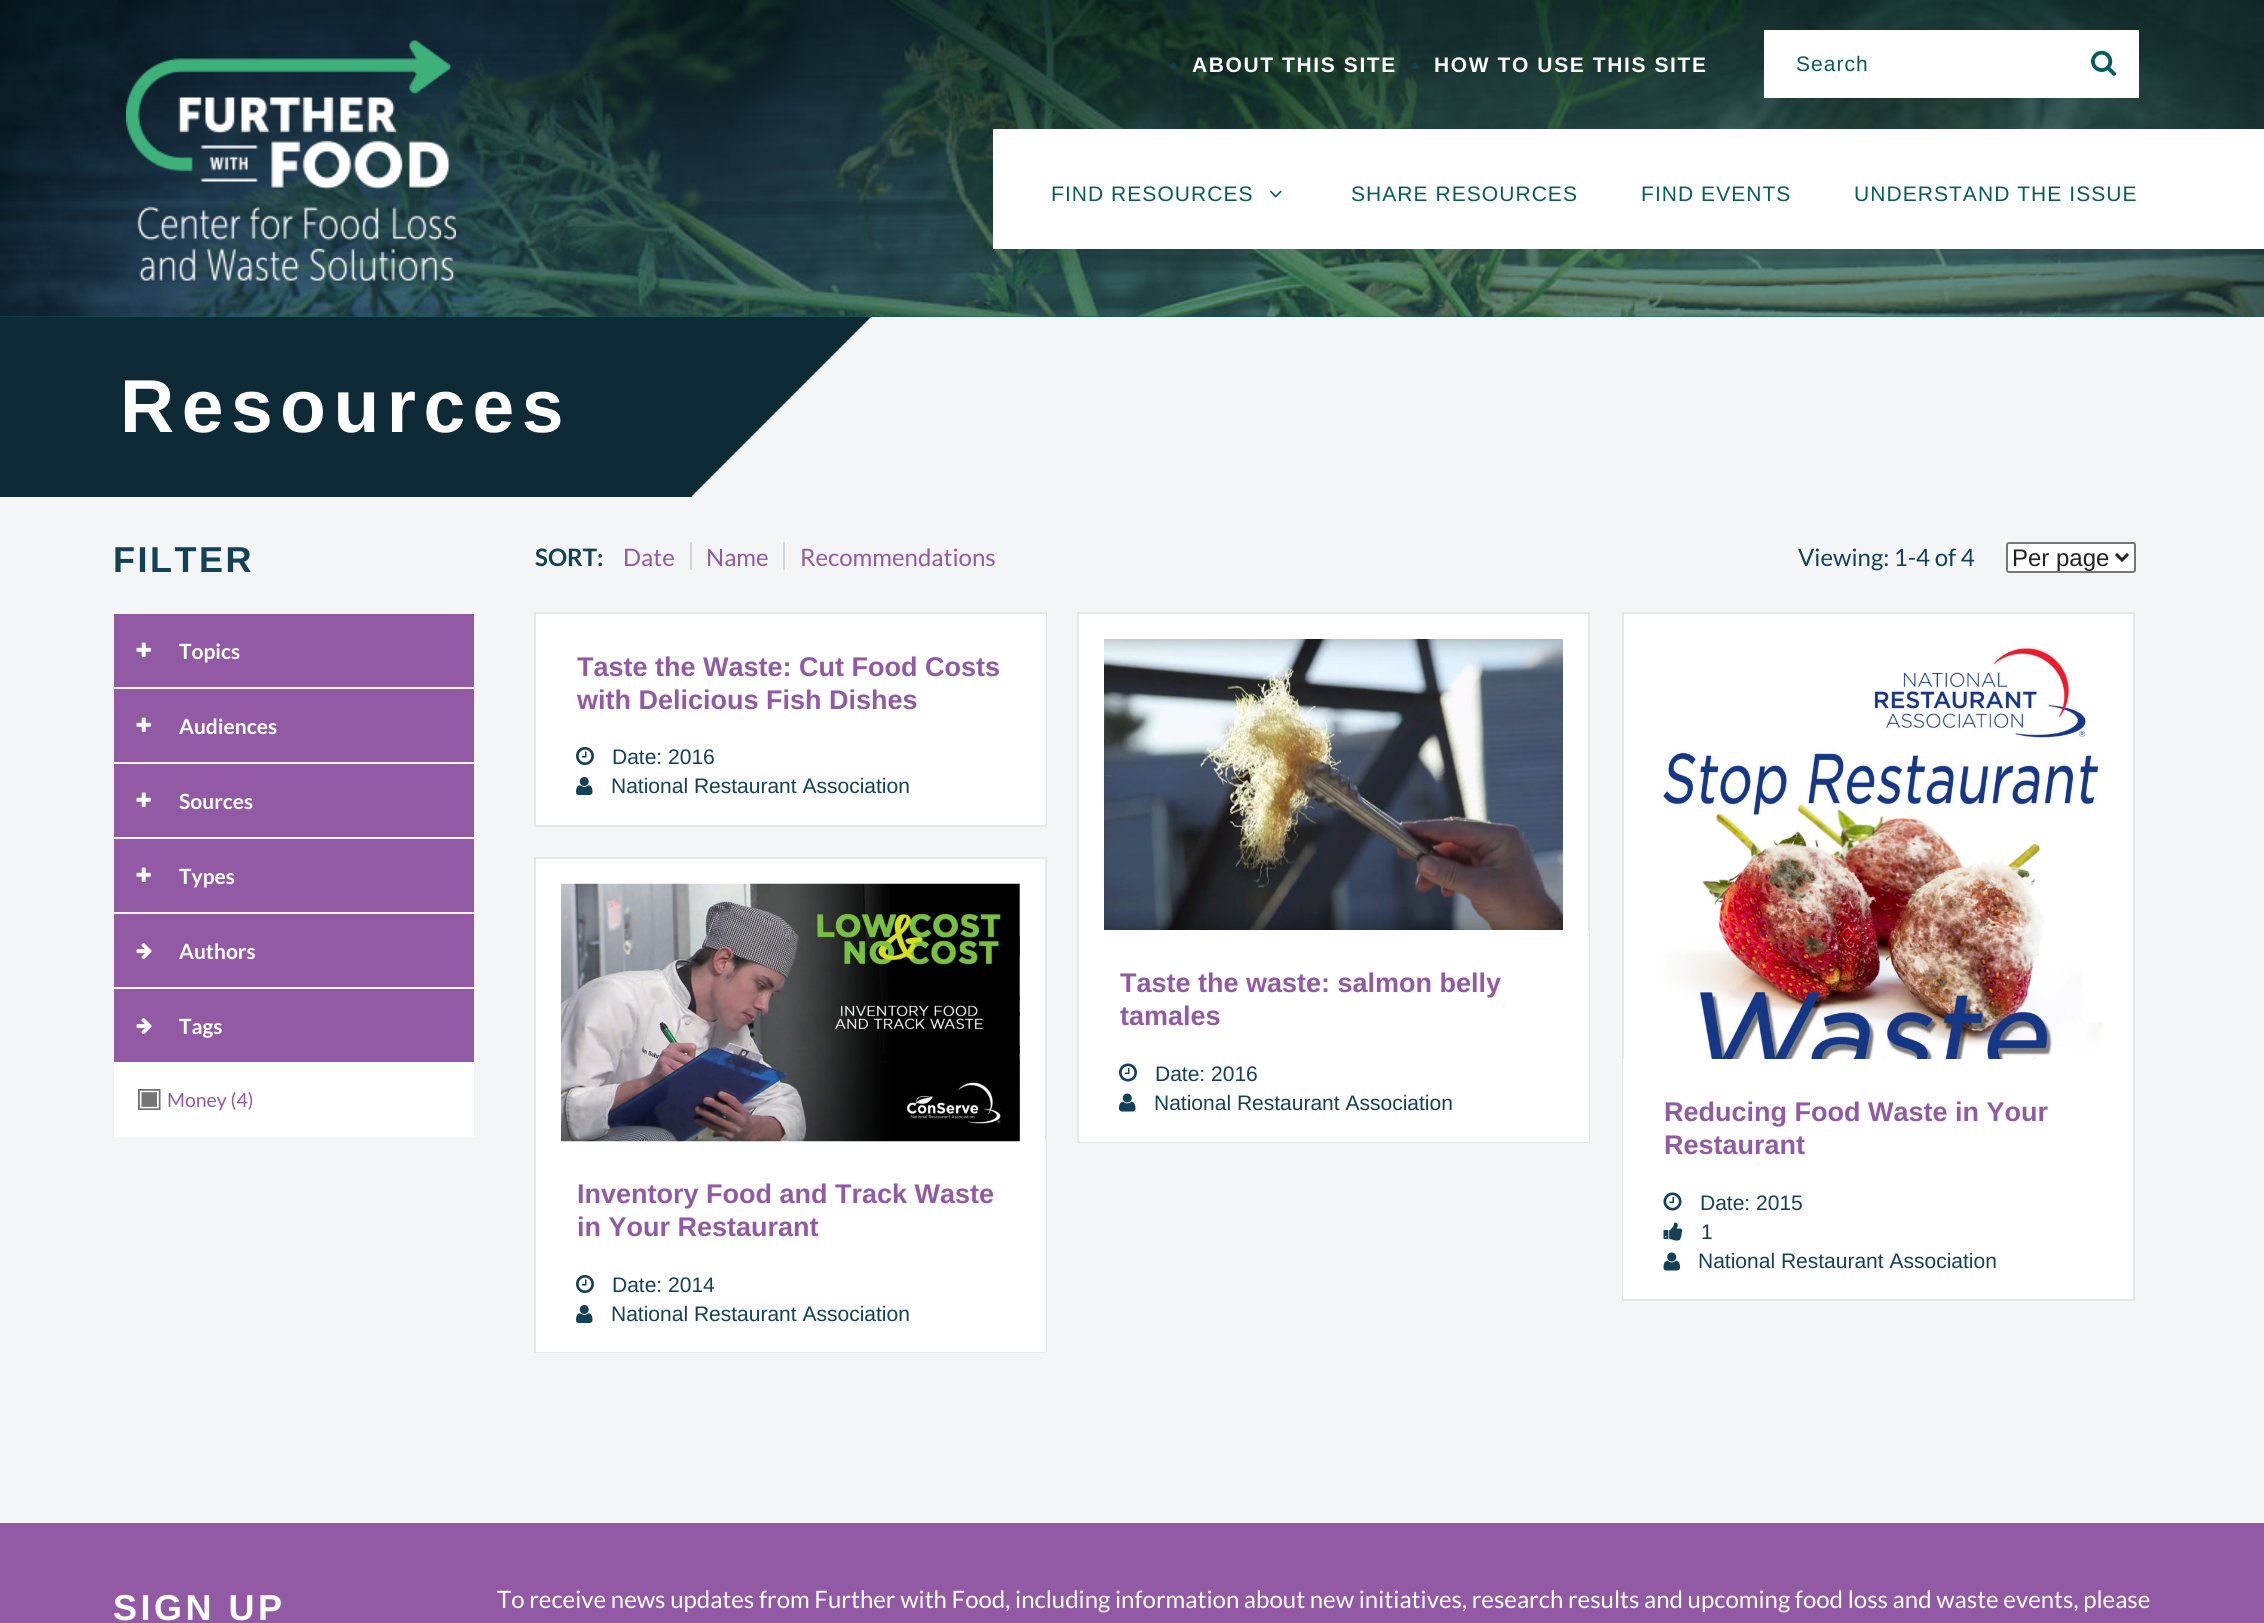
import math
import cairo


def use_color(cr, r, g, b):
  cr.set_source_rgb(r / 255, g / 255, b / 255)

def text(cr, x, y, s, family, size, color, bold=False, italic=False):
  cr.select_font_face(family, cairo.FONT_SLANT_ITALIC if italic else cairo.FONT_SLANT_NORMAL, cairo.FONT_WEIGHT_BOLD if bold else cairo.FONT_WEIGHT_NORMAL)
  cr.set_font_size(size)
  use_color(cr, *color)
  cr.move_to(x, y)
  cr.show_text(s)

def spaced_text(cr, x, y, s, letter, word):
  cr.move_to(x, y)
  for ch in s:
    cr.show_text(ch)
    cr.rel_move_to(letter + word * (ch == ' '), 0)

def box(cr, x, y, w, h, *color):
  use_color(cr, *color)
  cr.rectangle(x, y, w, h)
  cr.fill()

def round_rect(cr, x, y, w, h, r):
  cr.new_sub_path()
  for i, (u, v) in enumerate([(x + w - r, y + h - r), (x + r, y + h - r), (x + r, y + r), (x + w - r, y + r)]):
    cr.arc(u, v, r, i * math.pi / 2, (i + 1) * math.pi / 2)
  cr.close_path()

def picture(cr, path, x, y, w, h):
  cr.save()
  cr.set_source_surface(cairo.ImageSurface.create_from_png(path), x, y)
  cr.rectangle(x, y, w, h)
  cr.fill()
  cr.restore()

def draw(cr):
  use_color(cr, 244, 245, 247)
  cr.paint()
  use_color(cr, 14, 42, 55)
  cr.new_path()
  cr.move_to(692, 316)
  cr.line_to(872, 316)
  cr.line_to(692, 496)
  cr.close_path()
  cr.fill()
  box(cr, 0, 316, 2264, 1, 8, 92, 93)
  picture(cr, "img_01.png", 0, 0, 2264, 317)
  picture(cr, "img_02.png", 126, 40, 330, 241)
  use_color(cr, 19, 65, 86)
  cr.arc(1173, 66, 3, 0, 2 * math.pi)
  cr.fill()
  cr.arc(1415, 66, 3, 0, 2 * math.pi)
  cr.fill()
  box(cr, 1764, 30, 375, 68, 255, 255, 255)
  picture(cr, "img_03.png", 2091, 50, 25, 26)
  box(cr, 993, 129, 1271, 120, 255, 255, 255)
  picture(cr, "img_04.png", 1269, 190, 13, 8)
  box(cr, 0, 317, 692, 180, 14, 42, 55)
  box(cr, 114, 614, 360, 73, 146, 90, 165)
  picture(cr, "img_05.png", 136, 642, 15, 15)
  box(cr, 114, 689, 360, 73, 146, 90, 165)
  picture(cr, "img_05.png", 136, 717, 15, 15)
  box(cr, 114, 764, 360, 73, 146, 90, 165)
  picture(cr, "img_05.png", 136, 792, 15, 15)
  box(cr, 114, 839, 360, 73, 146, 90, 165)
  picture(cr, "img_05.png", 136, 867, 15, 15)
  box(cr, 114, 914, 360, 73, 146, 90, 165)
  picture(cr, "img_06.png", 136, 943, 16, 17)
  box(cr, 114, 989, 360, 73, 146, 90, 165)
  picture(cr, "img_06.png", 136, 1018, 16, 17)
  box(cr, 114, 1062, 360, 75, 255, 255, 255)
  picture(cr, "img_07.png", 138, 1089, 23, 21)
  box(cr, 690, 542, 2, 28, 206, 213, 221)
  box(cr, 783, 542, 2, 28, 206, 213, 221)
  use_color(cr, 255, 255, 255)
  round_rect(cr, 2007, 543, 128, 29, 2)
  cr.fill_preserve()
  use_color(cr, 118, 118, 118)
  cr.stroke()
  cr.new_path()
  cr.move_to(2116, 554)
  cr.line_to(2122, 560)
  cr.line_to(2128, 554)
  use_color(cr, 34, 34, 34)
  cr.set_line_width(3)
  cr.stroke()
  cr.rectangle(535, 613, 511, 213)
  use_color(cr, 230, 231, 233)
  cr.set_line_width(2)
  cr.stroke()
  box(cr, 536, 614, 510, 211, 255, 255, 255)
  picture(cr, "img_08.png", 576, 747, 18, 18)
  picture(cr, "img_09.png", 576, 777, 17, 18)
  box(cr, 1079, 614, 509, 316, 255, 255, 255)
  cr.rectangle(1078, 613, 511, 529)
  use_color(cr, 230, 231, 233)
  cr.stroke()
  picture(cr, "img_10.png", 1104, 639, 459, 291)
  box(cr, 1079, 930, 510, 212, 255, 255, 255)
  picture(cr, "img_11.png", 1119, 1063, 18, 19)
  picture(cr, "img_12.png", 1119, 1093, 17, 19)
  box(cr, 536, 859, 509, 283, 255, 255, 255)
  cr.rectangle(535, 858, 511, 494)
  use_color(cr, 230, 231, 233)
  cr.stroke()
  picture(cr, "img_13.png", 561, 883, 459, 259)
  box(cr, 536, 1142, 510, 210, 255, 255, 255)
  picture(cr, "img_08.png", 576, 1275, 18, 18)
  picture(cr, "img_09.png", 576, 1305, 17, 18)
  box(cr, 1624, 614, 509, 445, 255, 255, 255)
  cr.rectangle(1623, 613, 511, 687)
  use_color(cr, 230, 231, 233)
  cr.stroke()
  picture(cr, "img_14.png", 1663, 646, 441, 413)
  box(cr, 1623, 1059, 510, 240, 255, 255, 255)
  picture(cr, "img_15.png", 1663, 1192, 19, 19)
  picture(cr, "img_16.png", 1663, 1222, 20, 19)
  picture(cr, "img_17.png", 1663, 1252, 17, 19)
  box(cr, 0, 1523, 2264, 100, 146, 90, 165)
  cr.select_font_face("Arimo", cairo.FONT_SLANT_NORMAL, cairo.FONT_WEIGHT_BOLD)
  cr.set_font_size(21)
  use_color(cr, 255, 255, 255)
  spaced_text(cr, 1192, 72, "ABOUT THIS SITE", 1.6, 0)
  spaced_text(cr, 1434, 72, "HOW TO USE THIS SITE", 1.6, 0)
  cr.select_font_face("Arimo")
  use_color(cr, 8, 92, 93)
  spaced_text(cr, 1796, 71, "Search", 1.05, 0)
  spaced_text(cr, 1051, 201, "FIND RESOURCES", 1.05, 0)
  spaced_text(cr, 1351, 201, "SHARE RESOURCES", 1.05, 0)
  spaced_text(cr, 1641, 201, "FIND EVENTS", 1.05, 0)
  spaced_text(cr, 1854, 201, "UNDERSTAND THE ISSUE", 1.05, 0)
  cr.select_font_face("Arimo", cairo.FONT_SLANT_NORMAL, cairo.FONT_WEIGHT_BOLD)
  cr.set_font_size(75)
  use_color(cr, 255, 255, 255)
  spaced_text(cr, 120, 432, "Resources", 7.5, 0)
  cr.set_font_size(36)
  use_color(cr, 19, 65, 86)
  spaced_text(cr, 113, 572, "FILTER", 2.5, 0)
  text(cr, 179, 659, "Topics", "Lato", 21, (255, 255, 255), bold=True)
  text(cr, 179, 734, "Audiences", "Lato", 21, (255, 255, 255), bold=True)
  text(cr, 179, 809, "Sources", "Lato", 21, (255, 255, 255), bold=True)
  text(cr, 179, 884, "Types", "Lato", 21, (255, 255, 255), bold=True)
  text(cr, 179, 959, "Authors", "Lato", 21, (255, 255, 255), bold=True)
  text(cr, 179, 1034, "Tags", "Lato", 21, (255, 255, 255), bold=True)
  text(cr, 167, 1107, "Money (4)", "Lato", 19.5, (146, 90, 165))
  text(cr, 535, 566, "SORT:", "Lato", 24, (19, 65, 86), bold=True)
  text(cr, 623, 566, "Date", "Lato", 24, (146, 90, 165))
  text(cr, 706, 566, "Name", "Lato", 24, (146, 90, 165))
  text(cr, 800, 566, "Recommendations", "Lato", 24, (146, 90, 165))
  text(cr, 1798, 566, "Viewing: 1-4 of 4", "Lato", 24, (19, 65, 86))
  text(cr, 2012, 566, "Per page", "Liberation Sans", 24, (34, 34, 34))
  text(cr, 577, 676, "Taste the Waste: Cut Food Costs", "Arimo", 27, (146, 90, 165), bold=True)
  text(cr, 577, 709, "with Delicious Fish Dishes", "Arimo", 27, (146, 90, 165), bold=True)
  text(cr, 612, 764, "Date: 2016", "Arimo", 21, (19, 65, 86))
  text(cr, 611, 793, "National Restaurant Association", "Arimo", 21, (19, 65, 86))
  text(cr, 1120, 992, "Taste the waste: salmon belly", "Arimo", 27, (146, 90, 165), bold=True)
  text(cr, 1120, 1025, "tamales", "Arimo", 27, (146, 90, 165), bold=True)
  text(cr, 1155, 1081, "Date: 2016", "Arimo", 21, (19, 65, 86))
  text(cr, 1154, 1110, "National Restaurant Association", "Arimo", 21, (19, 65, 86))
  text(cr, 577, 1203, "Inventory Food and Track Waste", "Arimo", 27, (146, 90, 165), bold=True)
  text(cr, 577, 1236, "in Your Restaurant", "Arimo", 27, (146, 90, 165), bold=True)
  text(cr, 612, 1292, "Date: 2014", "Arimo", 21, (19, 65, 86))
  text(cr, 611, 1321, "National Restaurant Association", "Arimo", 21, (19, 65, 86))
  text(cr, 1664, 1121, "Reducing Food Waste in Your", "Arimo", 27, (146, 90, 165), bold=True)
  text(cr, 1664, 1154, "Restaurant", "Arimo", 27, (146, 90, 165), bold=True)
  text(cr, 1700, 1210, "Date: 2015", "Arimo", 21, (19, 65, 86))
  text(cr, 1701, 1239, "1", "Arimo", 21, (19, 65, 86))
  text(cr, 1698, 1268, "National Restaurant Association", "Arimo", 21, (19, 65, 86))
  cr.select_font_face("Arimo", cairo.FONT_SLANT_NORMAL, cairo.FONT_WEIGHT_BOLD)
  cr.set_font_size(36)
  use_color(cr, 255, 255, 255)
  spaced_text(cr, 113, 1620, "SIGN UP", 3.5, 0)
  text(cr, 497, 1608, "To receive news updates from Further with Food, including information about new initiatives, research results and upcoming food loss and waste events, please", "Lato", 24, (255, 255, 255))


surface = cairo.ImageSurface(cairo.FORMAT_RGB24, 2264, 1623)
cr = cairo.Context(surface)
options = cairo.FontOptions()
options.set_hint_metrics(cairo.HINT_METRICS_OFF)
options.set_hint_style(cairo.HINT_STYLE_NONE)
cr.set_font_options(options)
cr.set_miter_limit(4)
draw(cr)
surface.write_to_png("out.png")
